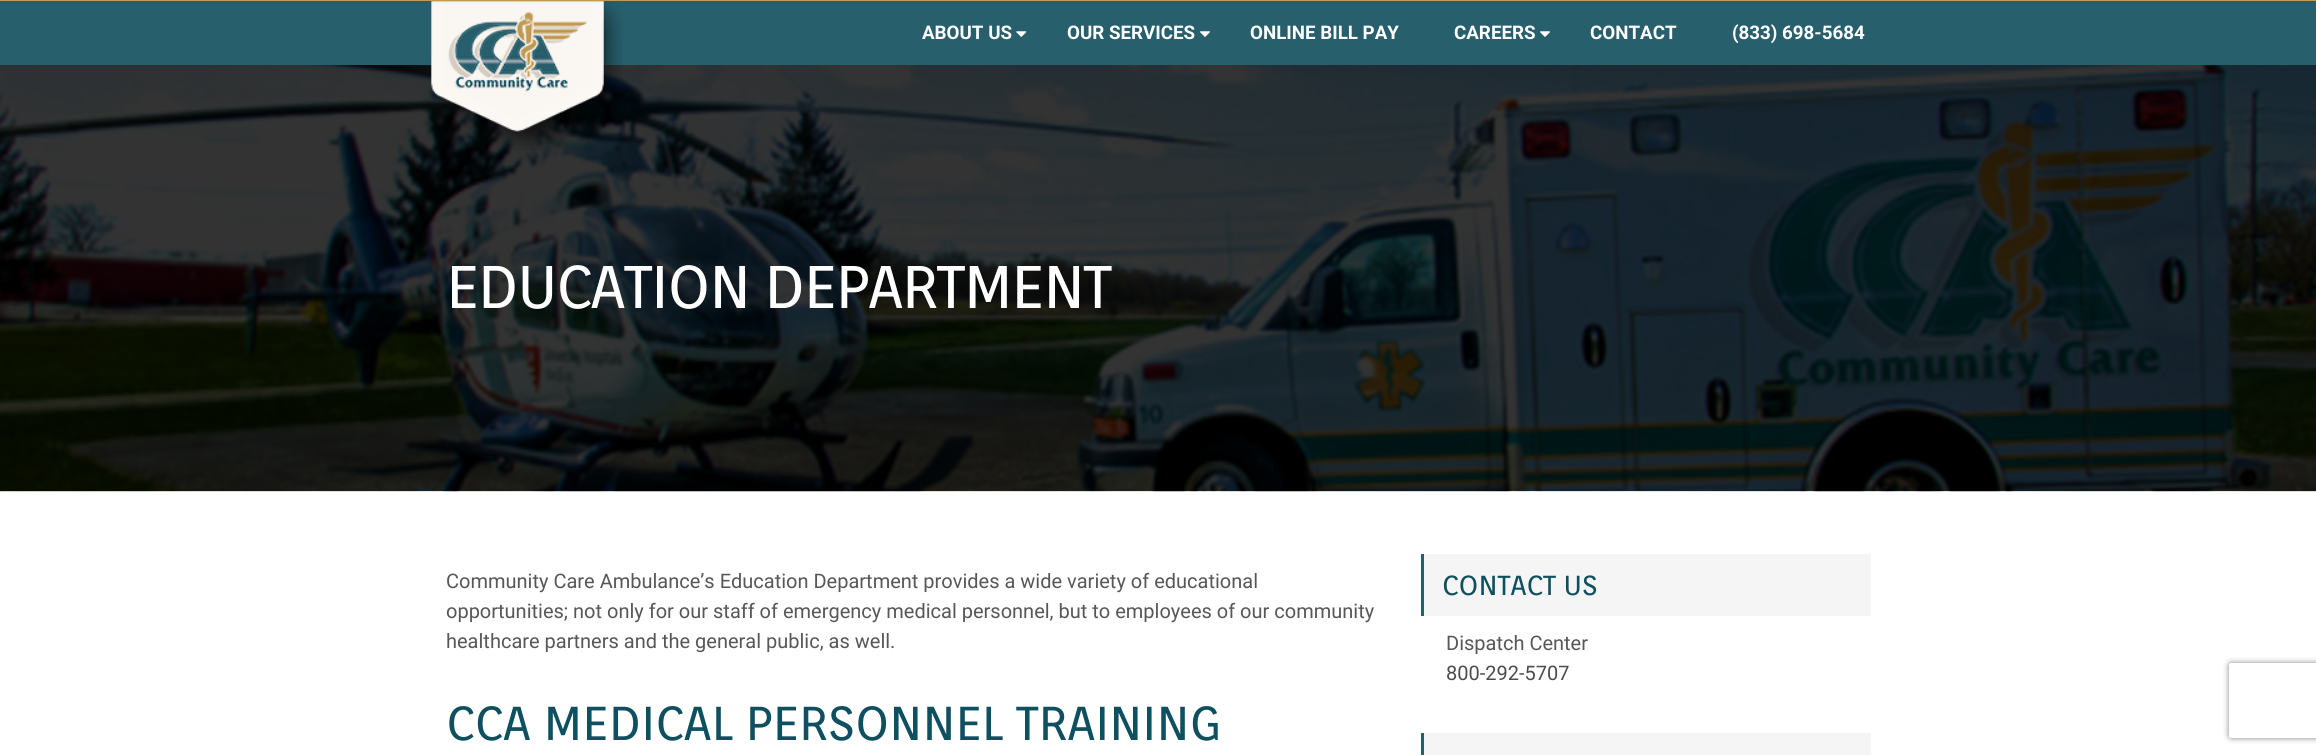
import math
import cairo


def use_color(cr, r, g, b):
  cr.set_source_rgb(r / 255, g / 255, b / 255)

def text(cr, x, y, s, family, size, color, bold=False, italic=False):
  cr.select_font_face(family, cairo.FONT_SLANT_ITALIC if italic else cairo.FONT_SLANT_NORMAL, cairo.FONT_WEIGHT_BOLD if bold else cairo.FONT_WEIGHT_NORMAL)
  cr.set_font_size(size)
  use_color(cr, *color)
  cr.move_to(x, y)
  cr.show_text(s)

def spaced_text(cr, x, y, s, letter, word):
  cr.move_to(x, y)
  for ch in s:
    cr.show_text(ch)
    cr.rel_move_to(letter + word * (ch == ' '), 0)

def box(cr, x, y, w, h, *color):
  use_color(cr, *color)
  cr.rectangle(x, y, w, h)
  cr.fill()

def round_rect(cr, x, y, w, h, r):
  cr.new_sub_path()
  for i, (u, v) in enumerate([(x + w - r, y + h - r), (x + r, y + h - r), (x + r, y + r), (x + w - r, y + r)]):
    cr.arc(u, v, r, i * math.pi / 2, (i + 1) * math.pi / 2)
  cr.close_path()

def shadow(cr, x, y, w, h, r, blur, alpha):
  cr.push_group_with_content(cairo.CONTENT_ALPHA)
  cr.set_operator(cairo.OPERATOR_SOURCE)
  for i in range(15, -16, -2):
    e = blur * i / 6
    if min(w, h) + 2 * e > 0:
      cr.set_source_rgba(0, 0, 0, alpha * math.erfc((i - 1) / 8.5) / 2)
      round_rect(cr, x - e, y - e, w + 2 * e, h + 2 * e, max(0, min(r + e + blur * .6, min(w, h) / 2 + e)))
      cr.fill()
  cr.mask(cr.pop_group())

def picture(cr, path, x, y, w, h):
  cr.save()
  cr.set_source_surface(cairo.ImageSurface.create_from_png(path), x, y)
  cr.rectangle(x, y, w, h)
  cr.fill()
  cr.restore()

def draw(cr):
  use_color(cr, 255, 255, 255)
  cr.paint()
  box(cr, 0, 1, 2316, 64, 40, 95, 108)
  box(cr, 0, 0, 2316, 1, 193, 155, 86)
  picture(cr, "img_04.png", 0, 65, 2316, 427)
  picture(cr, "img_01.png", 431, 1, 192, 150)
  picture(cr, "img_02.png", 1016, 31, 11, 6)
  picture(cr, "img_03.png", 1200, 31, 10, 6)
  picture(cr, "img_03.png", 1540, 31, 10, 6)
  box(cr, 1424, 554, 447, 62, 246, 245, 245)
  box(cr, 1421, 554, 3, 62, 40, 95, 108)
  box(cr, 1424, 733, 447, 22, 246, 245, 245)
  box(cr, 1421, 733, 3, 22, 40, 95, 108)
  cr.save()
  cr.set_fill_rule(cairo.FILL_RULE_EVEN_ODD)
  cr.new_path()
  cr.move_to(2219, 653)
  cr.line_to(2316, 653)
  cr.line_to(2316, 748)
  cr.line_to(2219, 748)
  cr.close_path()
  cr.move_to(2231.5, 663)
  cr.line_to(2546.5, 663)
  cr.curve_to(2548, 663, 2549, 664, 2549, 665.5)
  cr.line_to(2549, 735.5)
  cr.curve_to(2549, 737, 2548, 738, 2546.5, 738)
  cr.line_to(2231.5, 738)
  cr.curve_to(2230, 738, 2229, 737, 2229, 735.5)
  cr.line_to(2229, 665.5)
  cr.curve_to(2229, 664, 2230, 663, 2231.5, 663)
  cr.close_path()
  cr.clip()
  use_color(cr, 128, 128, 128)
  shadow(cr, 2229, 663, 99, 75, 2.5, 3, 1)
  cr.restore()
  text(cr, 922, 39, "ABOUT US", "Roboto", 18.75, (255, 255, 255), bold=True)
  text(cr, 1067, 39, "OUR SERVICES", "Roboto", 18.75, (255, 255, 255), bold=True)
  text(cr, 1250, 39, "ONLINE BILL PAY", "Roboto", 18.75, (255, 255, 255), bold=True)
  text(cr, 1454, 39, "CAREERS", "Roboto", 18.75, (255, 255, 255), bold=True)
  text(cr, 1590, 39, "CONTACT", "Roboto", 18.75, (255, 255, 255), bold=True)
  text(cr, 1732, 39, "(833) 698-5684", "Roboto", 18.75, (255, 255, 255), bold=True)
  cr.select_font_face("Orienta")
  cr.set_font_size(60)
  spaced_text(cr, 446, 308, "EDUCATION DEPARTMENT", -1.5, 0)
  text(cr, 446, 588, "Community Care Ambulance’s Education Department provides a wide variety of educational", "Roboto", 20, (87, 87, 87))
  text(cr, 446, 618, "opportunities; not only for our staff of emergency medical personnel, but to employees of our community", "Roboto", 20, (87, 87, 87))
  text(cr, 446, 648, "healthcare partners and the general public, as well.", "Roboto", 20, (87, 87, 87))
  text(cr, 446, 740, "CCA MEDICAL PERSONNEL TRAINING", "Orienta", 47.5, (14, 80, 96))
  text(cr, 1442, 595, "CONTACT US", "Orienta", 27.5, (14, 80, 96))
  text(cr, 1446, 650, "Dispatch Center", "Roboto", 20, (87, 87, 87))
  text(cr, 1446, 680, "800-292-5707", "Roboto", 20, (76, 76, 76))


surface = cairo.ImageSurface(cairo.FORMAT_RGB24, 2316, 755)
cr = cairo.Context(surface)
options = cairo.FontOptions()
options.set_hint_metrics(cairo.HINT_METRICS_OFF)
options.set_hint_style(cairo.HINT_STYLE_NONE)
cr.set_font_options(options)
cr.set_miter_limit(4)
draw(cr)
surface.write_to_png("out.png")
